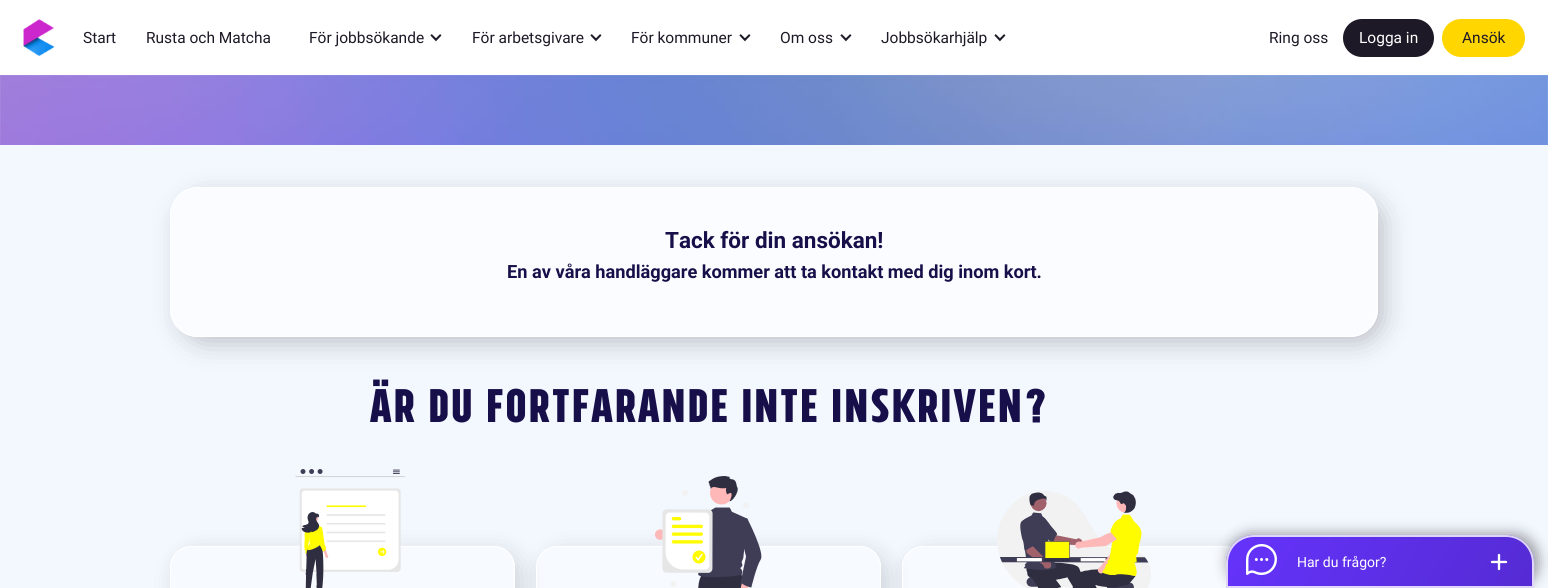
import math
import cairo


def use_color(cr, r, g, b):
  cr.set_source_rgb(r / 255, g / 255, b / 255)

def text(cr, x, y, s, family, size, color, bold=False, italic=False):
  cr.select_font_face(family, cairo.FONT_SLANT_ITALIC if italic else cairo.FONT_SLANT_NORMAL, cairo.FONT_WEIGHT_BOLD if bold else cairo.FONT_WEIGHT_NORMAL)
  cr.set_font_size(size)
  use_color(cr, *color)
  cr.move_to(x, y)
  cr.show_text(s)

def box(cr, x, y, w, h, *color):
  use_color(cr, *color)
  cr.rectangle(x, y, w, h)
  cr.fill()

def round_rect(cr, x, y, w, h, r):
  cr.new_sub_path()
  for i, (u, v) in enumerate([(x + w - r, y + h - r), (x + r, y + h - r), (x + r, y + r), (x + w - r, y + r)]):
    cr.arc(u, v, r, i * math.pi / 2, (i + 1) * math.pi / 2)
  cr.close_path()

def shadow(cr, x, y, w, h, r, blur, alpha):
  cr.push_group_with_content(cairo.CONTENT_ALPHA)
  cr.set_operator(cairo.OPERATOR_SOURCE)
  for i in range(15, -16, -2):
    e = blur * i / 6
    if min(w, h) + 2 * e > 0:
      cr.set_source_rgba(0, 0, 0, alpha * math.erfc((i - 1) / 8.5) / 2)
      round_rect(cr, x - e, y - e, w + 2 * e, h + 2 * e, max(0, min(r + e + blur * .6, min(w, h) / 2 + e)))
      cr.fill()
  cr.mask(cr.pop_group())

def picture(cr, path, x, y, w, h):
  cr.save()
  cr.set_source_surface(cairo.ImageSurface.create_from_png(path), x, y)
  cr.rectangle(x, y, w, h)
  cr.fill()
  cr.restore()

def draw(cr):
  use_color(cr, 243, 248, 255)
  cr.paint()
  box(cr, 0, 0, 1548, 75, 255, 255, 255)
  picture(cr, "img_01.png", 23, 19, 32, 37)
  picture(cr, "img_02.png", 430, 34, 12, 8)
  picture(cr, "img_02.png", 590, 34, 12, 8)
  picture(cr, "img_02.png", 739, 34, 12, 8)
  picture(cr, "img_02.png", 840, 34, 12, 8)
  picture(cr, "img_02.png", 994, 34, 12, 8)
  use_color(cr, 30, 25, 38)
  round_rect(cr, 1343, 19, 91, 38, 19)
  cr.fill()
  use_color(cr, 255, 214, 0)
  round_rect(cr, 1442, 19, 83, 38, 19)
  cr.fill()
  picture(cr, "img_03.png", 0, 75, 1548, 70)
  cr.save()
  cr.set_fill_rule(cairo.FILL_RULE_EVEN_ODD)
  cr.new_path()
  cr.move_to(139, 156)
  cr.line_to(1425, 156)
  cr.line_to(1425, 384)
  cr.line_to(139, 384)
  cr.close_path()
  cr.move_to(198, 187)
  cr.line_to(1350, 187)
  cr.curve_to(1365.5, 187, 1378, 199.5, 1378, 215)
  cr.line_to(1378, 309)
  cr.curve_to(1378, 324.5, 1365.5, 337, 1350, 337)
  cr.line_to(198, 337)
  cr.curve_to(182.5, 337, 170, 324.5, 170, 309)
  cr.line_to(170, 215)
  cr.curve_to(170, 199.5, 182.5, 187, 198, 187)
  cr.close_path()
  cr.clip()
  use_color(cr, 0, 0, 0)
  shadow(cr, 178, 195, 1208, 150, 28, 12.5, 0.2)
  cr.restore()
  cr.set_source_rgba(1, 1, 1, 0.6)
  round_rect(cr, 170.5, 187.5, 1207, 149, 27.5)
  cr.fill_preserve()
  use_color(cr, 255, 255, 255)
  cr.set_line_width(1)
  cr.stroke()
  cr.save()
  cr.set_fill_rule(cairo.FILL_RULE_EVEN_ODD)
  cr.new_path()
  cr.move_to(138, 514)
  cr.line_to(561, 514)
  cr.line_to(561, 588)
  cr.line_to(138, 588)
  cr.close_path()
  cr.move_to(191, 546)
  cr.line_to(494, 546)
  cr.curve_to(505.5, 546, 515, 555.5, 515, 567)
  cr.line_to(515, 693)
  cr.curve_to(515, 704.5, 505.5, 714, 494, 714)
  cr.line_to(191, 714)
  cr.curve_to(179.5, 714, 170, 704.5, 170, 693)
  cr.line_to(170, 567)
  cr.curve_to(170, 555.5, 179.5, 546, 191, 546)
  cr.close_path()
  cr.clip()
  use_color(cr, 0, 0, 0)
  shadow(cr, 177, 553, 345, 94, 21, 12.5, 0.15)
  cr.restore()
  cr.set_source_rgba(1, 1, 1, 0.3)
  round_rect(cr, 170.5, 546.5, 344, 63, 20.5)
  cr.fill_preserve()
  use_color(cr, 255, 255, 255)
  cr.stroke()
  picture(cr, "img_04.png", 295, 469, 110, 119)
  cr.save()
  cr.set_fill_rule(cairo.FILL_RULE_EVEN_ODD)
  cr.new_path()
  cr.move_to(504, 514)
  cr.line_to(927, 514)
  cr.line_to(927, 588)
  cr.line_to(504, 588)
  cr.close_path()
  cr.move_to(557, 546)
  cr.line_to(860, 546)
  cr.curve_to(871.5, 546, 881, 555.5, 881, 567)
  cr.line_to(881, 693)
  cr.curve_to(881, 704.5, 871.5, 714, 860, 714)
  cr.line_to(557, 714)
  cr.curve_to(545.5, 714, 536, 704.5, 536, 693)
  cr.line_to(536, 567)
  cr.curve_to(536, 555.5, 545.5, 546, 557, 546)
  cr.close_path()
  cr.clip()
  use_color(cr, 0, 0, 0)
  shadow(cr, 543, 553, 345, 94, 21, 12.5, 0.15)
  cr.restore()
  cr.set_source_rgba(1, 1, 1, 0.3)
  round_rect(cr, 536.5, 546.5, 344, 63, 20.5)
  cr.fill_preserve()
  use_color(cr, 255, 255, 255)
  cr.stroke()
  picture(cr, "img_05.png", 655, 476, 107, 112)
  cr.save()
  cr.set_fill_rule(cairo.FILL_RULE_EVEN_ODD)
  cr.new_path()
  cr.move_to(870, 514)
  cr.line_to(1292, 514)
  cr.line_to(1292, 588)
  cr.line_to(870, 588)
  cr.close_path()
  cr.move_to(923, 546)
  cr.line_to(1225, 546)
  cr.curve_to(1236.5, 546, 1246, 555.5, 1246, 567)
  cr.line_to(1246, 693)
  cr.curve_to(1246, 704.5, 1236.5, 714, 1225, 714)
  cr.line_to(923, 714)
  cr.curve_to(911.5, 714, 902, 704.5, 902, 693)
  cr.line_to(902, 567)
  cr.curve_to(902, 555.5, 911.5, 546, 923, 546)
  cr.close_path()
  cr.clip()
  use_color(cr, 0, 0, 0)
  shadow(cr, 909, 553, 344, 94, 21, 12.5, 0.15)
  cr.restore()
  cr.set_source_rgba(1, 1, 1, 0.3)
  round_rect(cr, 902.5, 546.5, 343, 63, 20.5)
  cr.fill_preserve()
  use_color(cr, 255, 255, 255)
  cr.stroke()
  picture(cr, "img_06.png", 997, 491, 154, 97)
  use_color(cr, 0, 0, 0)
  shadow(cr, 1227, 533, 312, 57, 30, 6.5, 0.35)
  cr.save()
  cr.new_path()
  cr.move_to(1254, 535)
  cr.line_to(1506, 535)
  cr.curve_to(1521.5, 535, 1534, 547.5, 1534, 563)
  cr.line_to(1534, 588)
  cr.line_to(1226, 588)
  cr.line_to(1226, 563)
  cr.curve_to(1226, 547.5, 1238.5, 535, 1254, 535)
  cr.close_path()
  cr.clip()
  gradient = cairo.LinearGradient(1253, 442, 1507, 583)
  gradient.add_color_stop_rgba(0, 0.396, 0.2, 0.984, 1)
  gradient.add_color_stop_rgba(1, 0.333, 0.169, 0.831, 1)
  cr.set_source(gradient)
  cr.rectangle(1243, 535, 274, 2)
  cr.fill()
  gradient = cairo.LinearGradient(949, 491, 1203, 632)
  gradient.add_color_stop_rgba(0, 0.396, 0.2, 0.984, 1)
  gradient.add_color_stop_rgba(1, 0.333, 0.169, 0.831, 1)
  cr.set_source(gradient)
  cr.rectangle(1226, 552, 2, 34)
  cr.fill()
  gradient = cairo.LinearGradient(1253, 491, 1507, 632)
  gradient.add_color_stop_rgba(0, 0.396, 0.2, 0.984, 1)
  gradient.add_color_stop_rgba(1, 0.333, 0.169, 0.831, 1)
  cr.set_source(gradient)
  cr.rectangle(1228, 537, 304, 49)
  cr.fill()
  gradient = cairo.LinearGradient(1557, 491, 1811, 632)
  gradient.add_color_stop_rgba(0, 0.396, 0.2, 0.984, 1)
  gradient.add_color_stop_rgba(1, 0.333, 0.169, 0.831, 1)
  cr.set_source(gradient)
  cr.rectangle(1532, 552, 2, 34)
  cr.fill()
  cr.restore()
  gradient = cairo.LinearGradient(949, 540, 1203, 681)
  gradient.add_color_stop_rgba(0, 0.396, 0.2, 0.984, 1)
  gradient.add_color_stop_rgba(1, 0.333, 0.169, 0.831, 1)
  cr.set_source(gradient)
  cr.rectangle(1226, 586, 2, 2)
  cr.fill()
  gradient = cairo.LinearGradient(1253, 540, 1507, 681)
  gradient.add_color_stop_rgba(0, 0.396, 0.2, 0.984, 1)
  gradient.add_color_stop_rgba(1, 0.333, 0.169, 0.831, 1)
  cr.set_source(gradient)
  cr.rectangle(1228, 586, 304, 2)
  cr.fill()
  gradient = cairo.LinearGradient(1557, 540, 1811, 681)
  gradient.add_color_stop_rgba(0, 0.396, 0.2, 0.984, 1)
  gradient.add_color_stop_rgba(1, 0.333, 0.169, 0.831, 1)
  cr.set_source(gradient)
  cr.rectangle(1532, 586, 2, 2)
  cr.fill()
  cr.new_path()
  cr.move_to(1254, 536)
  cr.line_to(1506, 536)
  cr.curve_to(1521, 536, 1533, 548, 1533, 563)
  cr.line_to(1533, 587)
  cr.line_to(1227, 587)
  cr.line_to(1227, 563)
  cr.curve_to(1227, 548, 1239, 536, 1254, 536)
  cr.close_path()
  cr.set_source_rgba(1, 1, 1, 0.8)
  cr.set_line_width(2)
  cr.stroke()
  picture(cr, "img_07.png", 1246, 544, 31, 31)
  picture(cr, "img_08.png", 1490, 553, 18, 18)
  text(cr, 83, 43, "Start", "Roboto", 15.5, (30, 25, 38))
  text(cr, 146, 43, "Rusta och Matcha", "Roboto", 15.5, (30, 25, 38))
  text(cr, 309, 43, "För jobbsökande", "Roboto", 15.5, (30, 25, 38))
  text(cr, 472, 43, "För arbetsgivare", "Roboto", 15.5, (30, 25, 38))
  text(cr, 631, 43, "För kommuner", "Roboto", 15.5, (30, 25, 38))
  text(cr, 780, 43, "Om oss", "Roboto", 15.5, (30, 25, 38))
  text(cr, 881, 43, "Jobbsökarhjälp", "Roboto", 15.5, (30, 25, 38))
  text(cr, 1269, 43, "Ring oss", "Roboto", 15.5, (30, 25, 38))
  text(cr, 1359, 43, "Logga in", "Roboto", 15.5, (255, 255, 255))
  text(cr, 1462, 43, "Ansök", "Roboto", 15.5, (30, 25, 38))
  text(cr, 665, 248, "Tack för din ansökan!", "Roboto", 22.5, (23, 15, 73), bold=True)
  text(cr, 507, 278, "En av våra handläggare kommer att ta kontakt med dig inom kort.", "Roboto", 18.2, (23, 15, 73), bold=True)
  text(cr, 369, 422, "Är du fortfarande inte inskriven?", "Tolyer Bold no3", 53.25, (23, 15, 73), bold=True)
  text(cr, 1297, 567, "Har du frågor?", "Roboto", 14, (255, 255, 255))


surface = cairo.ImageSurface(cairo.FORMAT_RGB24, 1548, 588)
cr = cairo.Context(surface)
options = cairo.FontOptions()
options.set_hint_metrics(cairo.HINT_METRICS_OFF)
options.set_hint_style(cairo.HINT_STYLE_NONE)
cr.set_font_options(options)
cr.set_miter_limit(4)
draw(cr)
surface.write_to_png("out.png")
